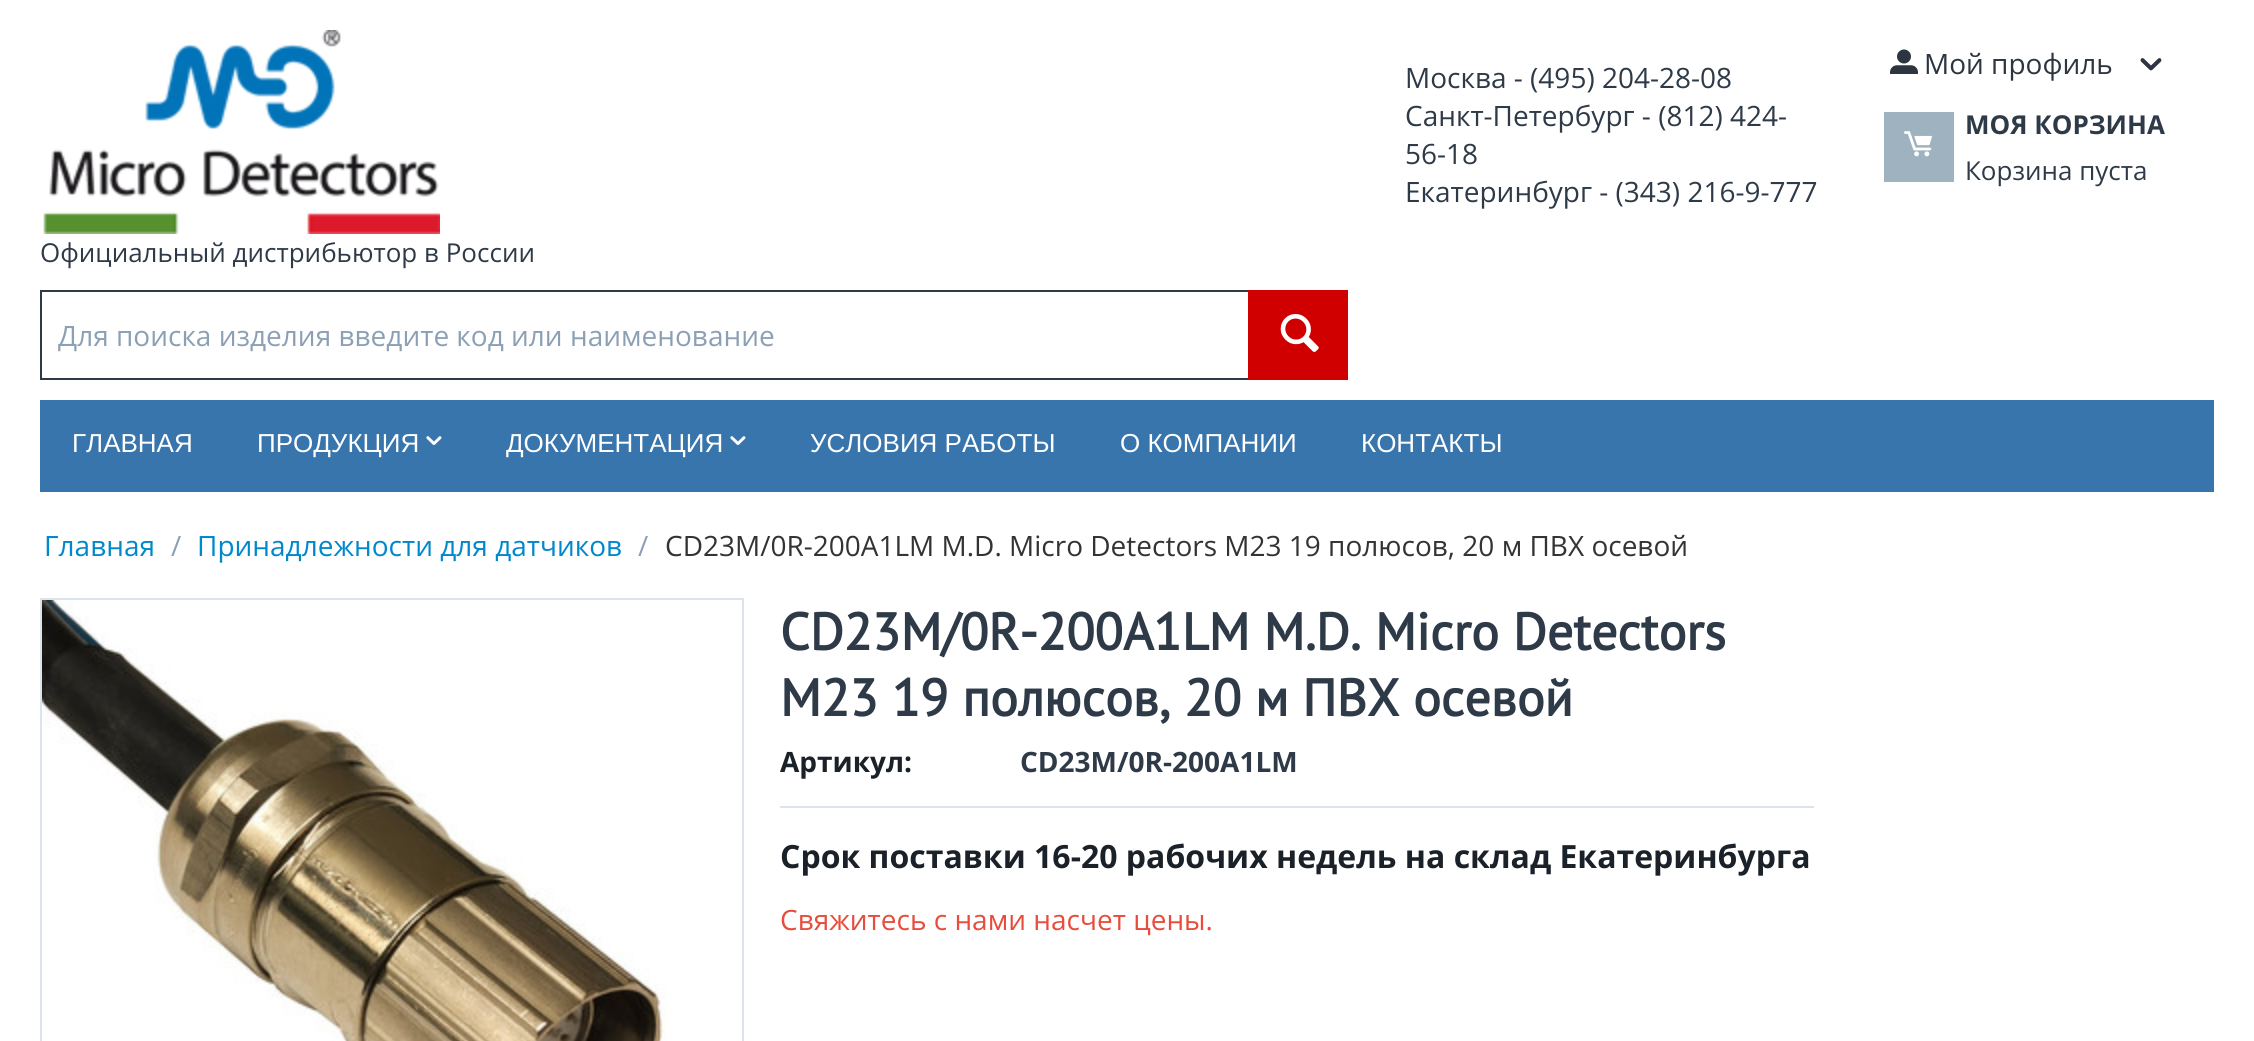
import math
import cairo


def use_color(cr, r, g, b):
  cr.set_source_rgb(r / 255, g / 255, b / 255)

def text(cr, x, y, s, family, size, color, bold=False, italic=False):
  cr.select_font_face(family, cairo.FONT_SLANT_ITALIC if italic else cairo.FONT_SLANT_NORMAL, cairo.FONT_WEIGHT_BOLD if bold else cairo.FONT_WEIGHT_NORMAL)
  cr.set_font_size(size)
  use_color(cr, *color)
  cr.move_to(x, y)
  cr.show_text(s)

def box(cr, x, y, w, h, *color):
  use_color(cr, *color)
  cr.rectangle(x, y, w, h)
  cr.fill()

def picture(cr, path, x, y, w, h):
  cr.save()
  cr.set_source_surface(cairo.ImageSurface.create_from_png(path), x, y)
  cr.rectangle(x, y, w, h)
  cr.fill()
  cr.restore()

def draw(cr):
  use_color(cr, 255, 255, 255)
  cr.paint()
  picture(cr, "img_01.png", 1890, 49, 28, 25)
  picture(cr, "img_02.png", 2140, 58, 22, 13)
  box(cr, 1884, 112, 70, 70, 159, 178, 192)
  picture(cr, "img_03.png", 1904, 131, 28, 26)
  picture(cr, "img_04.png", 43, 30, 397, 204)
  cr.rectangle(41, 291, 1236, 88)
  use_color(cr, 46, 58, 71)
  cr.stroke()
  box(cr, 1248, 290, 100, 90, 208, 0, 0)
  picture(cr, "img_05.png", 1280, 314, 39, 38)
  box(cr, 40, 400, 2174, 92, 56, 117, 173)
  picture(cr, "img_06.png", 426, 436, 16, 9)
  picture(cr, "img_06.png", 730, 436, 16, 9)
  cr.rectangle(41, 599, 702, 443)
  use_color(cr, 220, 227, 234)
  cr.stroke()
  picture(cr, "img_07.png", 42, 600, 625, 441)
  box(cr, 780, 806, 1034, 2, 220, 227, 234)
  text(cr, 1405, 88, "Москва - (495) 204-28-08", "Open Sans", 28, (46, 58, 71))
  text(cr, 1405, 126, "Санкт-Петербург - (812) 424-", "Open Sans", 28, (46, 58, 71))
  text(cr, 1405, 164, "56-18", "Open Sans", 28, (46, 58, 71))
  text(cr, 1405, 202, "Екатеринбург - (343) 216-9-777", "Open Sans", 28, (46, 58, 71))
  text(cr, 1924, 74, "Мой профиль", "Open Sans", 28, (45, 53, 64))
  text(cr, 1965, 134, "МОЯ КОРЗИНА", "Open Sans", 26, (46, 58, 71), bold=True)
  text(cr, 1965, 180, "Корзина пуста", "Open Sans", 26, (46, 58, 71))
  text(cr, 40, 262, "Официальный дистрибьютор в России", "Open Sans", 26, (46, 58, 71))
  text(cr, 58, 346, "Для поиска изделия введите код или наименование", "Open Sans", 28, (140, 160, 181))
  text(cr, 72, 452, "ГЛАВНАЯ", "Liberation Sans", 26, (255, 255, 255))
  text(cr, 257, 452, "ПРОДУКЦИЯ", "Liberation Sans", 26, (255, 255, 255))
  text(cr, 506, 452, "ДОКУМЕНТАЦИЯ", "Liberation Sans", 26, (255, 255, 255))
  text(cr, 810, 452, "УСЛОВИЯ РАБОТЫ", "Liberation Sans", 26, (255, 255, 255))
  text(cr, 1120, 452, "О КОМПАНИИ", "Liberation Sans", 26, (255, 255, 255))
  text(cr, 1361, 452, "КОНТАКТЫ", "Liberation Sans", 26, (255, 255, 255))
  text(cr, 44, 556, "Главная", "Open Sans", 28, (0, 136, 204))
  text(cr, 171, 556, "/", "Open Sans", 28, (140, 160, 181))
  text(cr, 197, 556, "Принадлежности для датчиков", "Open Sans", 28, (0, 136, 204))
  text(cr, 638, 556, "/", "Open Sans", 28, (140, 160, 181))
  text(cr, 665, 556, "CD23M/0R-200A1LM M.D. Micro Detectors M23 19 полюсов, 20 м ПВХ осевой", "Open Sans", 28, (51, 51, 51))
  text(cr, 780, 650, "CD23M/0R-200A1LM M.D. Micro Detectors", "PT Sans", 52, (46, 58, 71), bold=True)
  text(cr, 780, 716, "M23 19 полюсов, 20 м ПВХ осевой", "PT Sans", 52, (46, 58, 71), bold=True)
  text(cr, 780, 772, "Артикул:", "Open Sans", 28, (26, 33, 40), bold=True)
  text(cr, 1020, 772, "CD23M/0R-200A1LM", "Open Sans", 28, (46, 58, 71), bold=True)
  text(cr, 780, 868, "Срок поставки 16-20 рабочих недель на склад Екатеринбурга", "Open Sans", 32, (26, 33, 40), bold=True)
  text(cr, 780, 930, "Свяжитесь с нами насчет цены.", "Open Sans", 28, (231, 76, 60))


surface = cairo.ImageSurface(cairo.FORMAT_RGB24, 2254, 1041)
cr = cairo.Context(surface)
options = cairo.FontOptions()
options.set_hint_metrics(cairo.HINT_METRICS_OFF)
options.set_hint_style(cairo.HINT_STYLE_NONE)
cr.set_font_options(options)
cr.set_miter_limit(4)
draw(cr)
surface.write_to_png("out.png")
